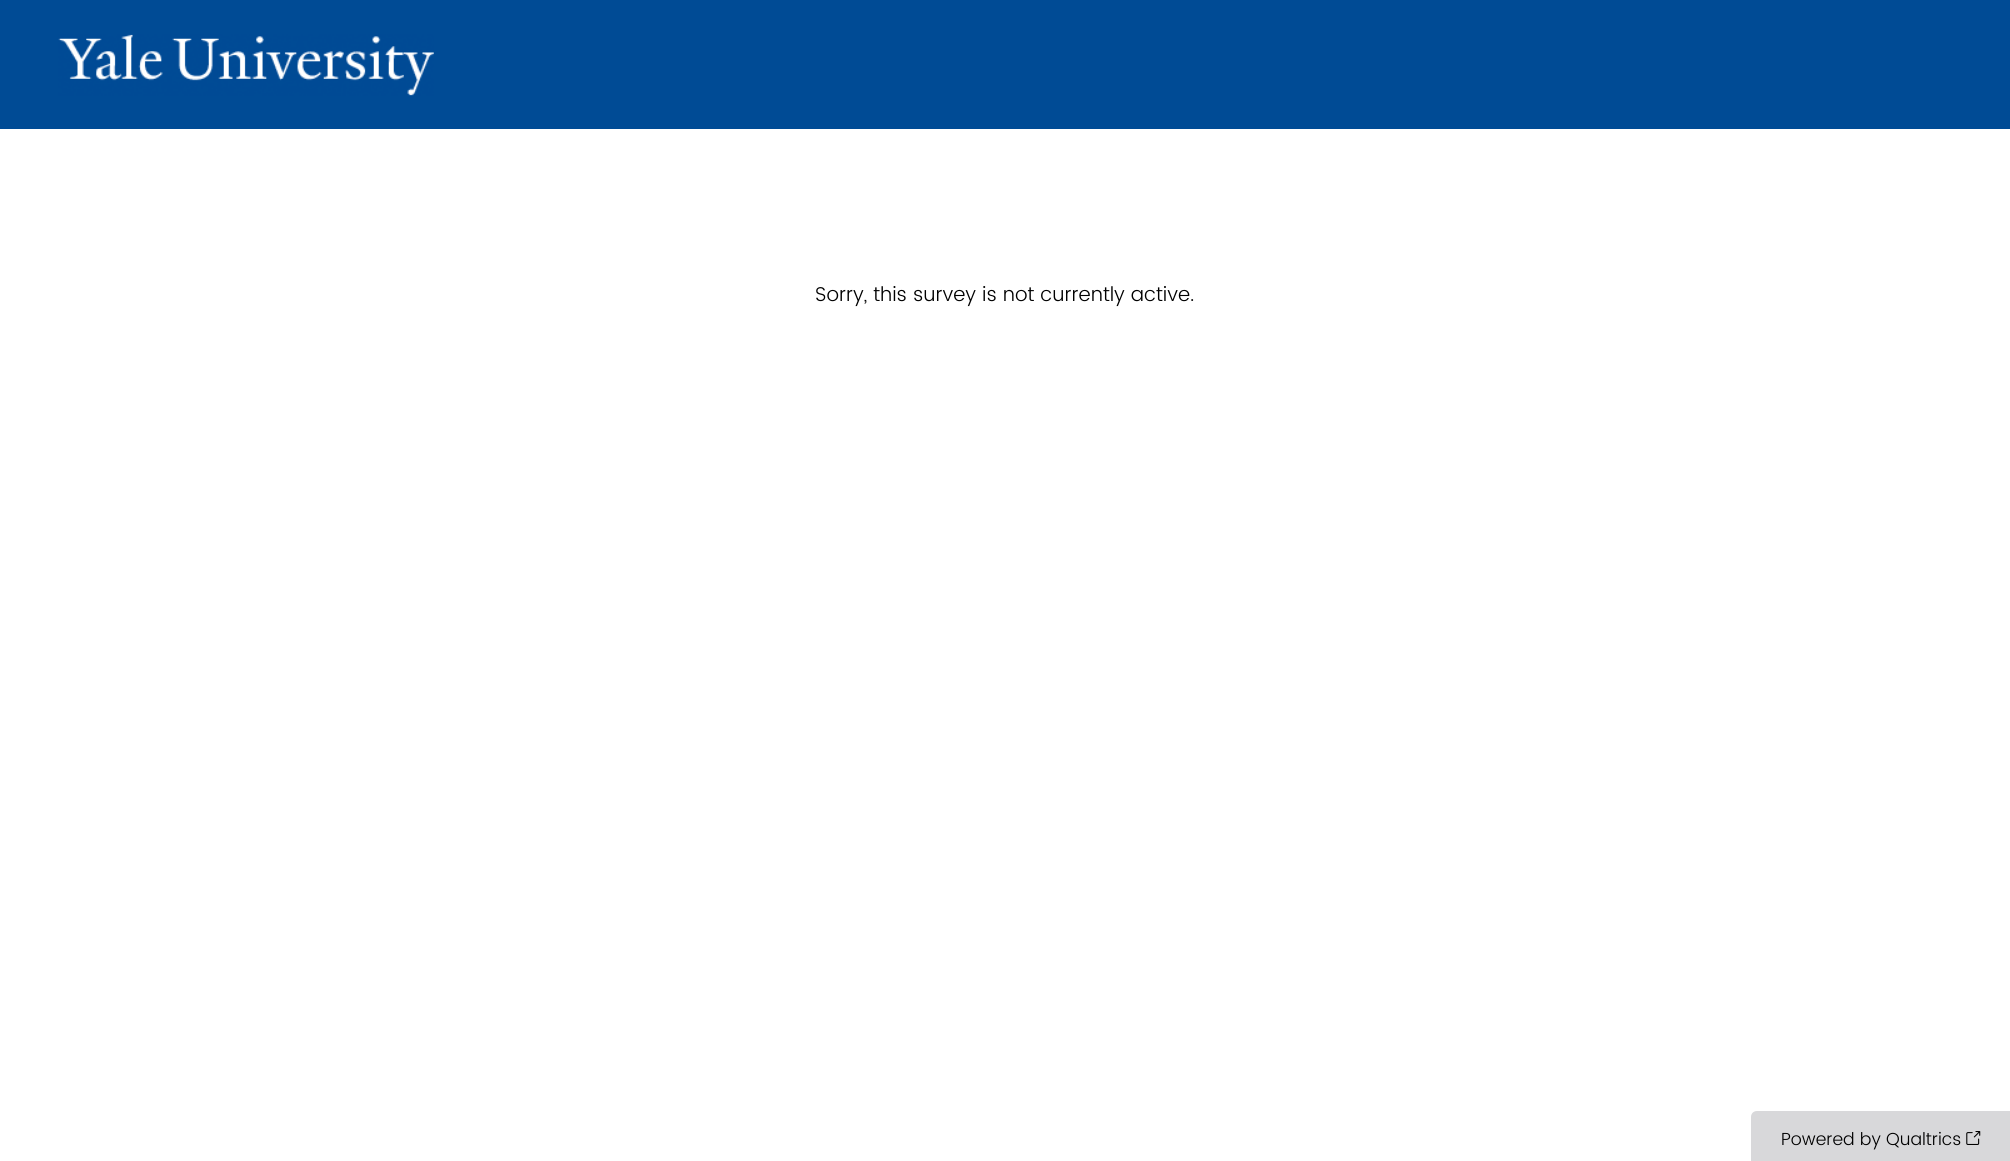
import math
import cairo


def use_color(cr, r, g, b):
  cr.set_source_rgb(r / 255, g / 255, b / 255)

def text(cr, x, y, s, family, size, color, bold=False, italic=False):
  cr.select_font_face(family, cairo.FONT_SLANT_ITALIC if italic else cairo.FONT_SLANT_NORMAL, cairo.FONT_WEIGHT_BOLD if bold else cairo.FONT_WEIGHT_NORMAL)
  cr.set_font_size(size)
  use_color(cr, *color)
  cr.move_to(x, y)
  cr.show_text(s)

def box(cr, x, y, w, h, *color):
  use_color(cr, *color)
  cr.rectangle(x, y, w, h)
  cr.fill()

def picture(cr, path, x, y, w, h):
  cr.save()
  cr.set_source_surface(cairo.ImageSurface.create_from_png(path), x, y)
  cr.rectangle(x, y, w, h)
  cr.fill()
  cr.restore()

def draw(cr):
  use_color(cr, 255, 255, 255)
  cr.paint()
  box(cr, 0, 0, 2010, 129, 0, 75, 149)
  picture(cr, "img_01.png", 58, 34, 376, 62)
  use_color(cr, 216, 216, 218)
  cr.new_path()
  cr.move_to(1757, 1111)
  cr.line_to(2010, 1111)
  cr.line_to(2010, 1161)
  cr.line_to(1751, 1161)
  cr.line_to(1751, 1117)
  cr.curve_to(1751, 1113.5, 1753.5, 1111, 1757, 1111)
  cr.close_path()
  cr.fill()
  picture(cr, "img_02.png", 1966, 1131, 15, 14)
  text(cr, 815, 301, "Sorry, this survey is not currently active.", "Poppins Light", 20, (0, 0, 0))
  text(cr, 1781, 1145, "Powered by Qualtrics", "Poppins Light", 17.5, (0, 0, 0))


surface = cairo.ImageSurface(cairo.FORMAT_RGB24, 2010, 1161)
cr = cairo.Context(surface)
options = cairo.FontOptions()
options.set_hint_metrics(cairo.HINT_METRICS_OFF)
options.set_hint_style(cairo.HINT_STYLE_NONE)
cr.set_font_options(options)
cr.set_miter_limit(4)
draw(cr)
surface.write_to_png("out.png")
